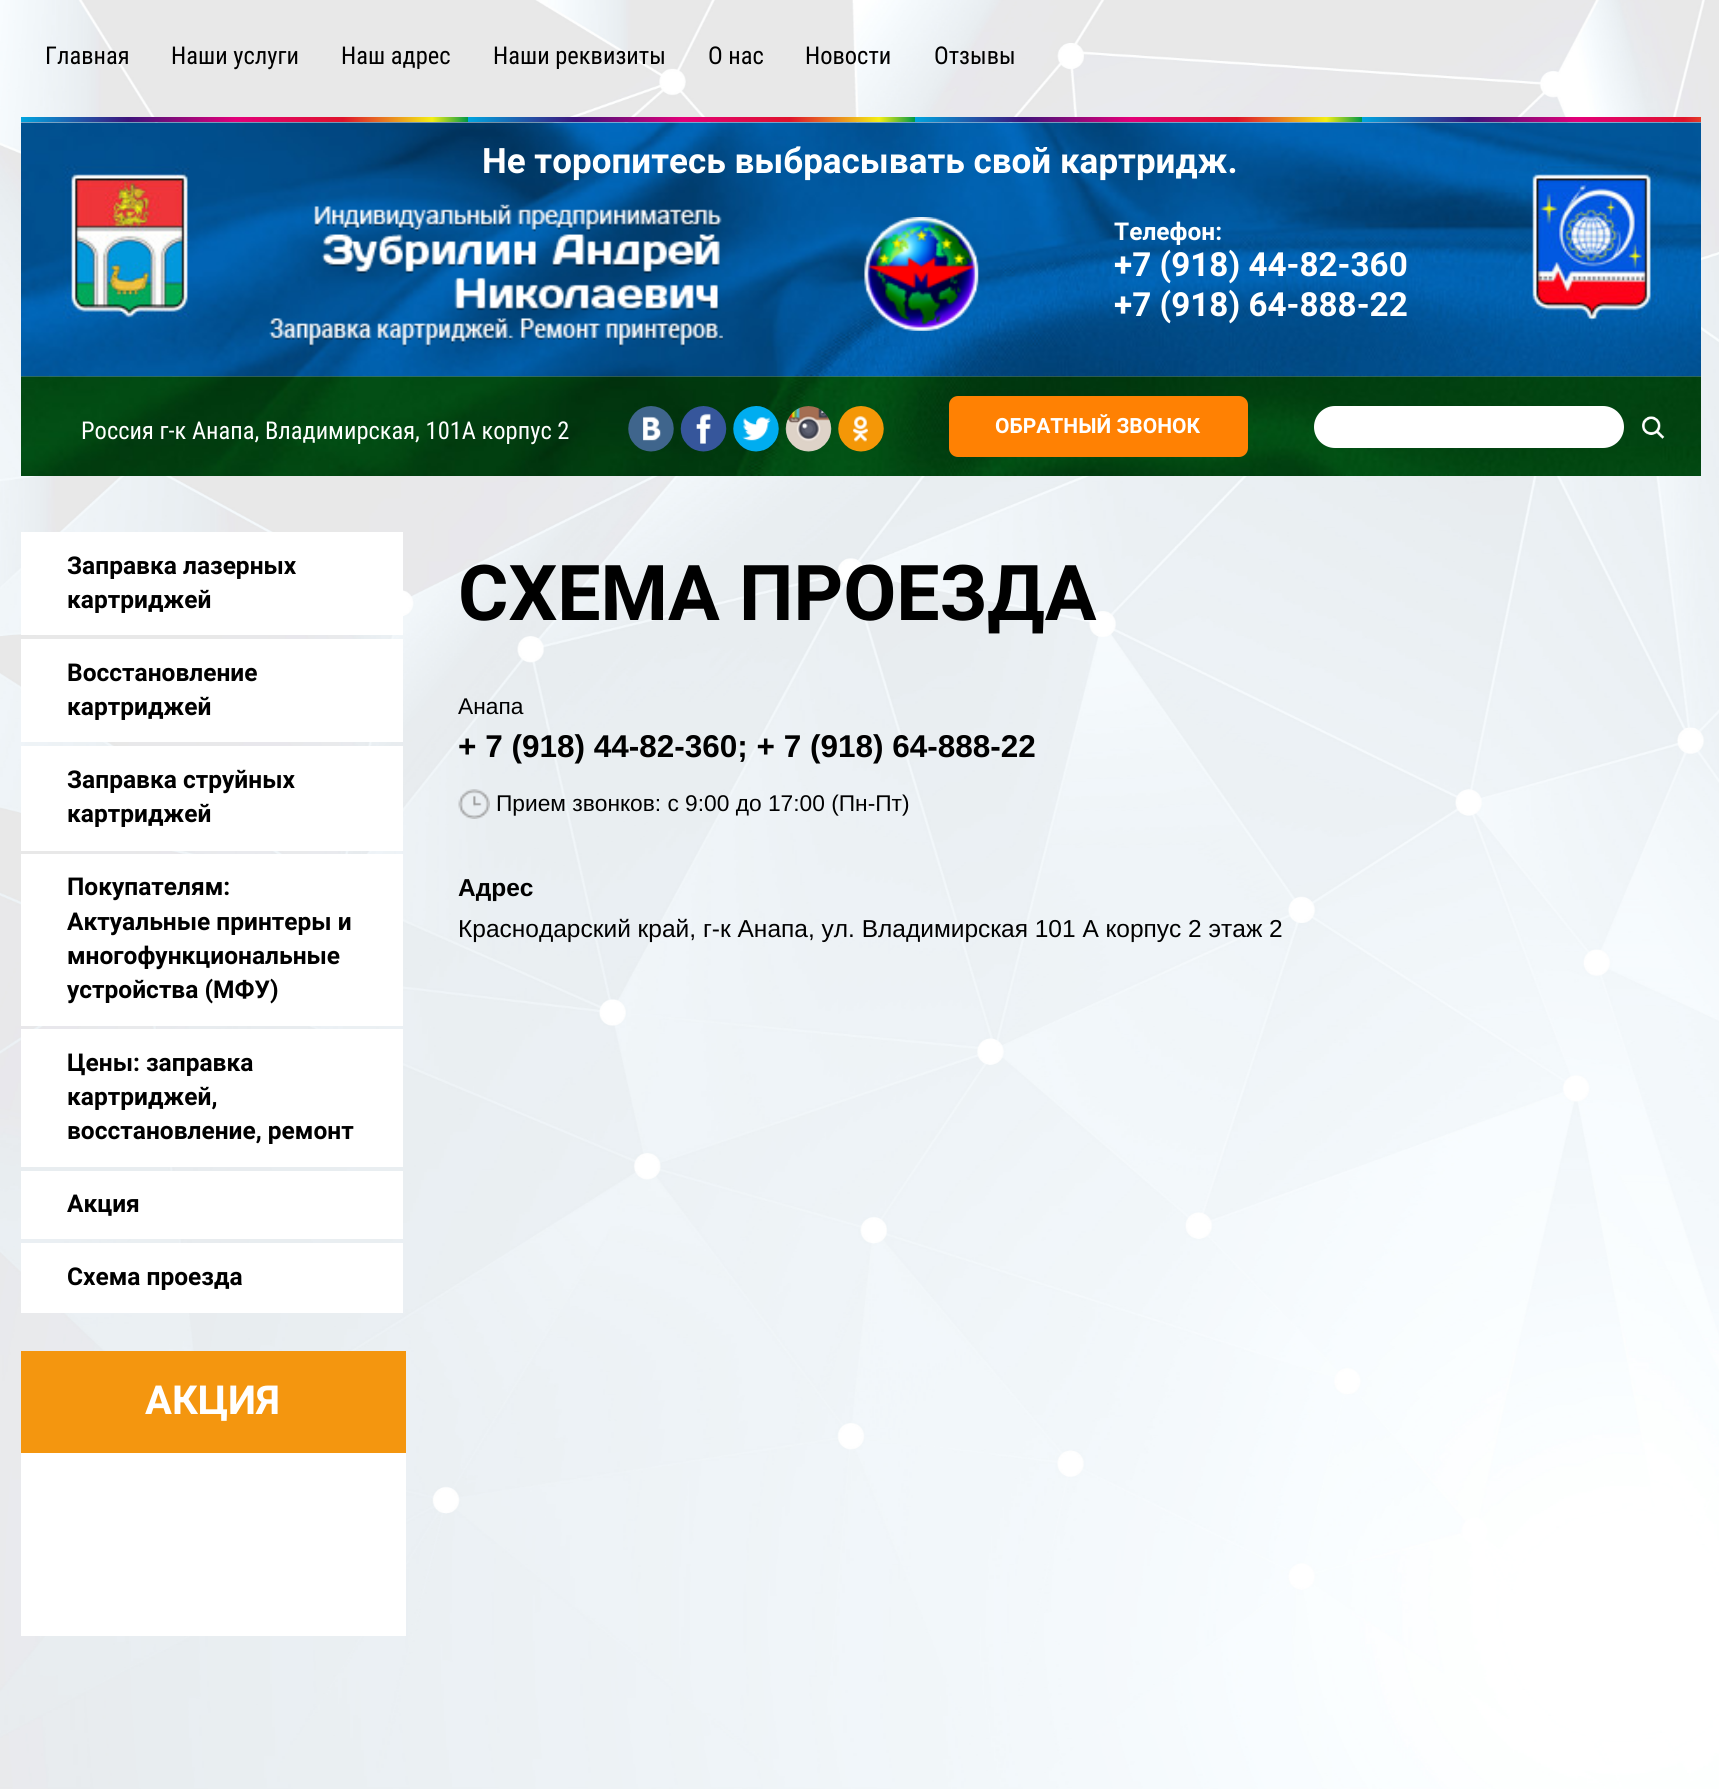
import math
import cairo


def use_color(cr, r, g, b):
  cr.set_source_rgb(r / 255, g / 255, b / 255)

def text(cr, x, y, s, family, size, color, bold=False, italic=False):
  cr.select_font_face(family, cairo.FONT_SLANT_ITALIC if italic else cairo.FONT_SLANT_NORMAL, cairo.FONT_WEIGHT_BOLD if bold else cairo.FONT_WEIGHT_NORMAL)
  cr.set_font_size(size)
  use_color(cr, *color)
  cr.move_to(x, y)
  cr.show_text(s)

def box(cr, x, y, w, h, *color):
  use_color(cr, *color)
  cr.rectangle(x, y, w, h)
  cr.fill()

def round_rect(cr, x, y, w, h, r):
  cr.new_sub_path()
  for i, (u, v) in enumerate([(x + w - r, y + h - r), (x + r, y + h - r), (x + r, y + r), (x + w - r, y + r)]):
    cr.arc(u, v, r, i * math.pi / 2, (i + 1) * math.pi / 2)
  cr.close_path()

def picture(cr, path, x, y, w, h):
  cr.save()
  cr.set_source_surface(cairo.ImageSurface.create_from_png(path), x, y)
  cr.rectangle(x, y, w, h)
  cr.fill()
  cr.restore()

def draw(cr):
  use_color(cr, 255, 255, 255)
  cr.paint()
  picture(cr, "img_01.png", 0, 0, 1719, 1789)
  picture(cr, "img_05.png", 21, 376, 1680, 100)
  picture(cr, "img_02.png", 21, 122, 1680, 255)
  gradient = cairo.LinearGradient(21, 120, 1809, 120)
  gradient.add_color_stop_rgba(0, 0, 0.647, 0.875, 1)
  gradient.add_color_stop_rgba(0.06, 0.243, 0.078, 0.482, 1)
  gradient.add_color_stop_rgba(0.12, 0.886, 0, 0.475, 1)
  gradient.add_color_stop_rgba(0.18, 0.875, 0.075, 0.173, 1)
  gradient.add_color_stop_rgba(0.23, 0.953, 0.937, 0.082, 1)
  gradient.add_color_stop_rgba(0.25, 0, 0.596, 0.278, 1)
  gradient.add_color_stop_rgba(0.25, 0, 0.647, 0.875, 1)
  gradient.add_color_stop_rgba(0.31, 0.243, 0.078, 0.482, 1)
  gradient.add_color_stop_rgba(0.37, 0.886, 0, 0.475, 1)
  gradient.add_color_stop_rgba(0.43, 0.875, 0.075, 0.173, 1)
  gradient.add_color_stop_rgba(0.48, 0.953, 0.937, 0.082, 1)
  gradient.add_color_stop_rgba(0.5, 0, 0.596, 0.278, 1)
  gradient.add_color_stop_rgba(0.5, 0, 0.647, 0.875, 1)
  gradient.add_color_stop_rgba(0.56, 0.243, 0.078, 0.482, 1)
  gradient.add_color_stop_rgba(0.62, 0.886, 0, 0.475, 1)
  gradient.add_color_stop_rgba(0.68, 0.875, 0.075, 0.173, 1)
  gradient.add_color_stop_rgba(0.73, 0.953, 0.937, 0.082, 1)
  gradient.add_color_stop_rgba(0.75, 0, 0.596, 0.278, 1)
  gradient.add_color_stop_rgba(0.75, 0, 0.647, 0.875, 1)
  gradient.add_color_stop_rgba(0.81, 0.243, 0.078, 0.482, 1)
  gradient.add_color_stop_rgba(0.87, 0.886, 0, 0.475, 1)
  gradient.add_color_stop_rgba(0.93, 0.875, 0.075, 0.173, 1)
  gradient.add_color_stop_rgba(0.98, 0.953, 0.937, 0.082, 1)
  gradient.add_color_stop_rgba(1, 0, 0.596, 0.278, 1)
  cr.set_source(gradient)
  cr.rectangle(21, 117, 1680, 5)
  cr.fill()
  picture(cr, "img_03.png", 269, 204, 454, 143)
  picture(cr, "img_04.png", 864, 217, 115, 114)
  picture(cr, "img_06.png", 628, 406, 46, 46)
  picture(cr, "img_07.png", 680, 406, 47, 46)
  picture(cr, "img_08.png", 733, 406, 46, 46)
  picture(cr, "img_09.png", 785, 406, 47, 46)
  picture(cr, "img_10.png", 838, 406, 46, 46)
  use_color(cr, 255, 129, 3)
  round_rect(cr, 949, 396, 299, 61, 9)
  cr.fill()
  use_color(cr, 255, 255, 255)
  round_rect(cr, 1314, 406, 310, 42, 21)
  cr.fill()
  picture(cr, "img_11.png", 1642, 416, 23, 23)
  box(cr, 21, 532, 382, 103, 255, 255, 255)
  box(cr, 21, 639, 382, 103, 255, 255, 255)
  box(cr, 21, 746, 382, 105, 255, 255, 255)
  box(cr, 21, 854, 382, 172, 255, 255, 255)
  box(cr, 21, 1029, 382, 138, 255, 255, 255)
  box(cr, 21, 1171, 382, 68, 255, 255, 255)
  box(cr, 21, 1243, 382, 70, 255, 255, 255)
  box(cr, 21, 1351, 385, 102, 244, 150, 15)
  box(cr, 21, 1453, 385, 183, 255, 255, 255)
  picture(cr, "img_12.png", 458, 789, 32, 30)
  text(cr, 45, 64, "Главная", "Roboto Condensed", 24.5, (0, 0, 0))
  text(cr, 171, 64, "Наши услуги", "Roboto Condensed", 24.5, (0, 0, 0))
  text(cr, 341, 64, "Наш адрес", "Roboto Condensed", 24.5, (0, 0, 0))
  text(cr, 493, 64, "Наши реквизиты", "Roboto Condensed", 24.5, (0, 0, 0))
  text(cr, 708, 64, "О нас", "Roboto Condensed", 24.5, (0, 0, 0))
  text(cr, 805, 64, "Новости", "Roboto Condensed", 24.5, (0, 0, 0))
  text(cr, 934, 64, "Отзывы", "Roboto Condensed", 24.5, (0, 0, 0))
  text(cr, 482, 173, "Не торопитесь выбрасывать свой картридж.", "Roboto", 35, (255, 255, 255), bold=True)
  text(cr, 1114, 240, "Телефон:", "Roboto", 24.5, (255, 255, 255), bold=True)
  text(cr, 1114, 276, "+7 (918) 44-82-360", "Roboto", 33.25, (255, 255, 255), bold=True)
  text(cr, 1114, 316, "+7 (918) 64-888-22", "Roboto", 33.25, (255, 255, 255), bold=True)
  text(cr, 81, 439, "Россия г-к Анапа, Владимирская, 101А корпус 2", "Roboto Condensed", 24.5, (255, 255, 255))
  text(cr, 995, 433, "ОБРАТНЫЙ ЗВОНОК", "Roboto", 21, (255, 255, 255), bold=True)
  text(cr, 67, 574, "Заправка лазерных", "Roboto", 24.5, (0, 0, 0), bold=True)
  text(cr, 67, 608, "картриджей", "Roboto", 24.5, (0, 0, 0), bold=True)
  text(cr, 67, 681, "Восстановление", "Roboto", 24.5, (0, 0, 0), bold=True)
  text(cr, 67, 715, "картриджей", "Roboto", 24.5, (0, 0, 0), bold=True)
  text(cr, 67, 788, "Заправка струйных", "Roboto", 24.5, (0, 0, 0), bold=True)
  text(cr, 67, 822, "картриджей", "Roboto", 24.5, (0, 0, 0), bold=True)
  text(cr, 67, 895, "Покупателям:", "Roboto", 24.5, (0, 0, 0), bold=True)
  text(cr, 67, 930, "Актуальные принтеры и", "Roboto", 24.5, (0, 0, 0), bold=True)
  text(cr, 67, 964, "многофункциональные", "Roboto", 24.5, (0, 0, 0), bold=True)
  text(cr, 67, 998, "устройства (МФУ)", "Roboto", 24.5, (0, 0, 0), bold=True)
  text(cr, 67, 1071, "Цены: заправка", "Roboto", 24.5, (0, 0, 0), bold=True)
  text(cr, 67, 1105, "картриджей,", "Roboto", 24.5, (0, 0, 0), bold=True)
  text(cr, 67, 1139, "восстановление, ремонт", "Roboto", 24.5, (0, 0, 0), bold=True)
  text(cr, 67, 1212, "Акция", "Roboto", 24.5, (0, 0, 0), bold=True)
  text(cr, 67, 1285, "Схема проезда", "Roboto", 24.5, (0, 0, 0), bold=True)
  text(cr, 145, 1414, "АКЦИЯ", "Roboto", 40, (255, 255, 255), bold=True)
  text(cr, 458, 620, "СХЕМА ПРОЕЗДА", "Roboto", 77, (0, 0, 0), bold=True)
  text(cr, 458, 714, "Анапа", "Liberation Sans", 22.75, (0, 0, 0))
  text(cr, 458, 757, "+ 7 (918) 44-82-360; + 7 (918) 64-888-22", "Liberation Sans", 31.5, (0, 0, 0), bold=True)
  text(cr, 496, 811, "Прием звонков: с 9:00 до 17:00 (Пн-Пт)", "Liberation Sans", 22.75, (0, 0, 0))
  text(cr, 458, 896, "Адрес", "Liberation Sans", 24.5, (0, 0, 0), bold=True)
  text(cr, 458, 937, "Краснодарский край, г-к Анапа, ул. Владимирская 101 А корпус 2 этаж 2", "Liberation Sans", 24.5, (0, 0, 0))


surface = cairo.ImageSurface(cairo.FORMAT_RGB24, 1719, 1789)
cr = cairo.Context(surface)
options = cairo.FontOptions()
options.set_hint_metrics(cairo.HINT_METRICS_OFF)
options.set_hint_style(cairo.HINT_STYLE_NONE)
cr.set_font_options(options)
cr.set_miter_limit(4)
draw(cr)
surface.write_to_png("out.png")
